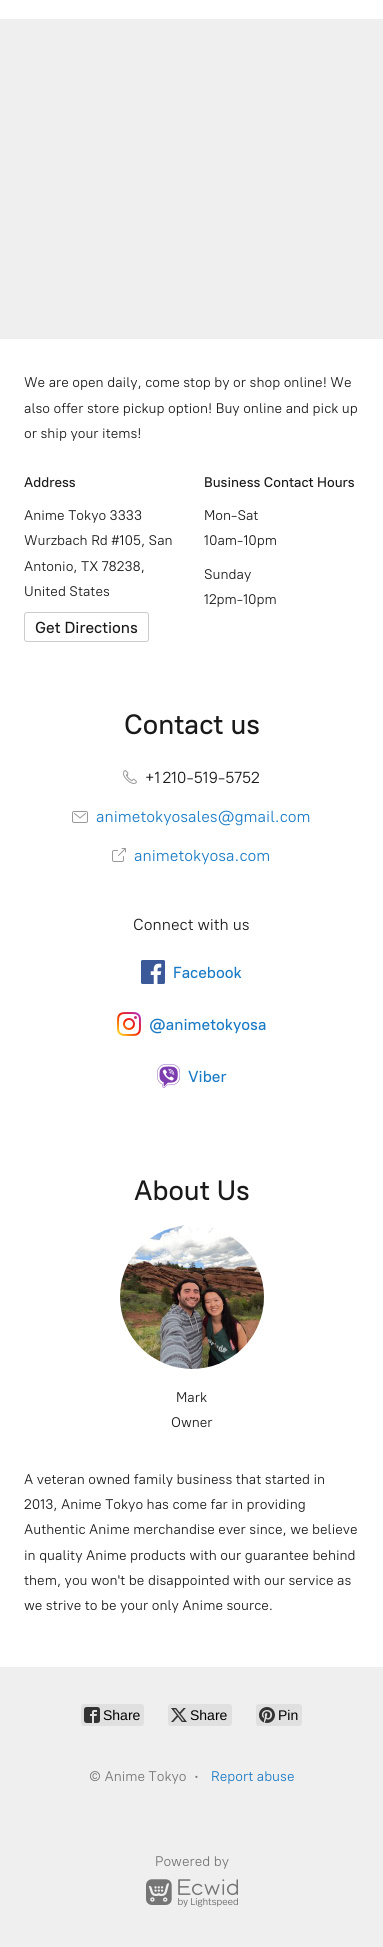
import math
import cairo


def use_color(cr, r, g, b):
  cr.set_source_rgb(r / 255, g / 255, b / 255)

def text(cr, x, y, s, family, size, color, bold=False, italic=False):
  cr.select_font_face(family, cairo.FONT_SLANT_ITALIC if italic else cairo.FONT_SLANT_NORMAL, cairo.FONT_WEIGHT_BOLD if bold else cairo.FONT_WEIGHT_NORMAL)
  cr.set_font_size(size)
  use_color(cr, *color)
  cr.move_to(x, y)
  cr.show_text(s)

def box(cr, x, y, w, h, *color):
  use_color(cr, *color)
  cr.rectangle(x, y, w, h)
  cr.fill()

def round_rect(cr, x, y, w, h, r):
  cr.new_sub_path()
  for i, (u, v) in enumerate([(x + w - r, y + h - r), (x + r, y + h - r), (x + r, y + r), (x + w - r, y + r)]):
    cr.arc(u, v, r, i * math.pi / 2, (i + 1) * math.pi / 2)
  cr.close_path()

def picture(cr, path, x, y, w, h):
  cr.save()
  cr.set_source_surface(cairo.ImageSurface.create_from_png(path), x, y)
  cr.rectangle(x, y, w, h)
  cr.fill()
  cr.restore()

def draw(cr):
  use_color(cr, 255, 255, 255)
  cr.paint()
  box(cr, 0, 19, 383, 320, 239, 239, 239)
  round_rect(cr, 24.5, 612.5, 124, 29, 2.5)
  use_color(cr, 204, 204, 204)
  cr.set_line_width(1)
  cr.stroke()
  picture(cr, "img_01.png", 123, 770, 14, 14)
  picture(cr, "img_02.png", 72, 811, 16, 12)
  picture(cr, "img_03.png", 112, 848, 14, 14)
  picture(cr, "img_04.png", 141, 960, 24, 24)
  picture(cr, "img_05.png", 117, 1012, 24, 24)
  picture(cr, "img_06.png", 157, 1064, 23, 24)
  picture(cr, "img_07.png", 120, 1225, 144, 144)
  box(cr, 0, 1667, 383, 280, 239, 239, 239)
  use_color(cr, 224, 224, 224)
  round_rect(cr, 81, 1704, 63, 22, 3)
  cr.fill()
  picture(cr, "img_08.png", 84, 1707, 16, 16)
  round_rect(cr, 168, 1704, 64, 22, 3)
  cr.fill()
  picture(cr, "img_09.png", 171, 1708, 16, 14)
  round_rect(cr, 256, 1704, 46, 22, 3)
  cr.fill()
  picture(cr, "img_10.png", 259, 1707, 16, 16)
  picture(cr, "img_11.png", 146, 1879, 92, 28)
  text(cr, 24, 387, "We are open daily, come stop by or shop online! We", "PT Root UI", 14, (25, 25, 25))
  text(cr, 24, 413, "also offer store pickup option! Buy online and pick up", "PT Root UI", 14, (25, 25, 25))
  text(cr, 24, 438, "or ship your items!", "PT Root UI", 14, (25, 25, 25))
  text(cr, 24, 487, "Address", "PT Root UI Medium", 14, (25, 25, 25))
  text(cr, 24, 520, "Anime Tokyo 3333", "PT Root UI", 14, (25, 25, 25))
  text(cr, 24, 545, "Wurzbach Rd #105, San", "PT Root UI", 14, (25, 25, 25))
  text(cr, 24, 571, "Antonio, TX 78238,", "PT Root UI", 14, (25, 25, 25))
  text(cr, 24, 596, "United States", "PT Root UI", 14, (25, 25, 25))
  text(cr, 35, 633, "Get Directions", "PT Root UI Medium", 16, (25, 25, 25))
  text(cr, 204, 487, "Business Contact Hours", "PT Root UI Medium", 14, (25, 25, 25))
  text(cr, 204, 520, "Mon-Sat", "PT Root UI", 14, (25, 25, 25))
  text(cr, 204, 545, "10am-10pm", "PT Root UI", 14, (25, 25, 25))
  text(cr, 204, 579, "Sunday", "PT Root UI", 14, (25, 25, 25))
  text(cr, 204, 604, "12pm-10pm", "PT Root UI", 14, (25, 25, 25))
  text(cr, 124, 734, "Contact us", "PT Root UI Medium", 28, (25, 25, 25))
  text(cr, 145, 783, "+1 210-519-5752", "PT Root UI", 16, (25, 25, 25))
  text(cr, 96, 822, "animetokyosales@gmail.com", "PT Root UI", 16, (26, 122, 196))
  text(cr, 134, 861, "animetokyosa.com", "PT Root UI", 16, (26, 122, 196))
  text(cr, 133, 930, "Connect with us", "PT Root UI", 16, (25, 25, 25))
  text(cr, 173, 978, "Facebook", "PT Root UI Medium", 16, (26, 122, 196))
  text(cr, 149, 1030, "@animetokyosa", "PT Root UI Medium", 16, (26, 122, 196))
  text(cr, 188, 1082, "Viber", "PT Root UI Medium", 16, (26, 122, 196))
  text(cr, 134, 1200, "About Us", "PT Root UI Medium", 28, (25, 25, 25))
  text(cr, 176, 1402, "Mark", "PT Root UI", 14, (25, 25, 25))
  text(cr, 171, 1427, "Owner", "PT Root UI", 14, (25, 25, 25))
  text(cr, 24, 1484, "A veteran owned family business that started in", "PT Root UI", 14, (25, 25, 25))
  text(cr, 24, 1509, "2013, Anime Tokyo has come far in providing", "PT Root UI", 14, (25, 25, 25))
  text(cr, 24, 1534, "Authentic Anime merchandise ever since, we believe", "PT Root UI", 14, (25, 25, 25))
  text(cr, 24, 1560, "in quality Anime products with our guarantee behind", "PT Root UI", 14, (25, 25, 25))
  text(cr, 24, 1585, "them, you won't be disappointed with our service as", "PT Root UI", 14, (25, 25, 25))
  text(cr, 24, 1610, "we strive to be your only Anime source.", "PT Root UI", 14, (25, 25, 25))
  text(cr, 103, 1720, "Share", "Liberation Sans", 14, (0, 0, 0))
  text(cr, 190, 1720, "Share", "Liberation Sans", 14, (0, 0, 0))
  text(cr, 278, 1720, "Pin", "Liberation Sans", 14, (0, 0, 0))
  text(cr, 89, 1781, "© Anime Tokyo", "PT Root UI", 14, (117, 117, 117))
  text(cr, 194, 1781, "·", "PT Root UI Medium", 16, (117, 117, 117))
  text(cr, 211, 1781, "Report abuse", "PT Root UI", 14, (26, 122, 196))
  text(cr, 155, 1866, "Powered by", "PT Root UI", 14, (117, 117, 117))


surface = cairo.ImageSurface(cairo.FORMAT_RGB24, 383, 1947)
cr = cairo.Context(surface)
options = cairo.FontOptions()
options.set_hint_metrics(cairo.HINT_METRICS_OFF)
options.set_hint_style(cairo.HINT_STYLE_NONE)
cr.set_font_options(options)
cr.set_miter_limit(4)
draw(cr)
surface.write_to_png("out.png")
